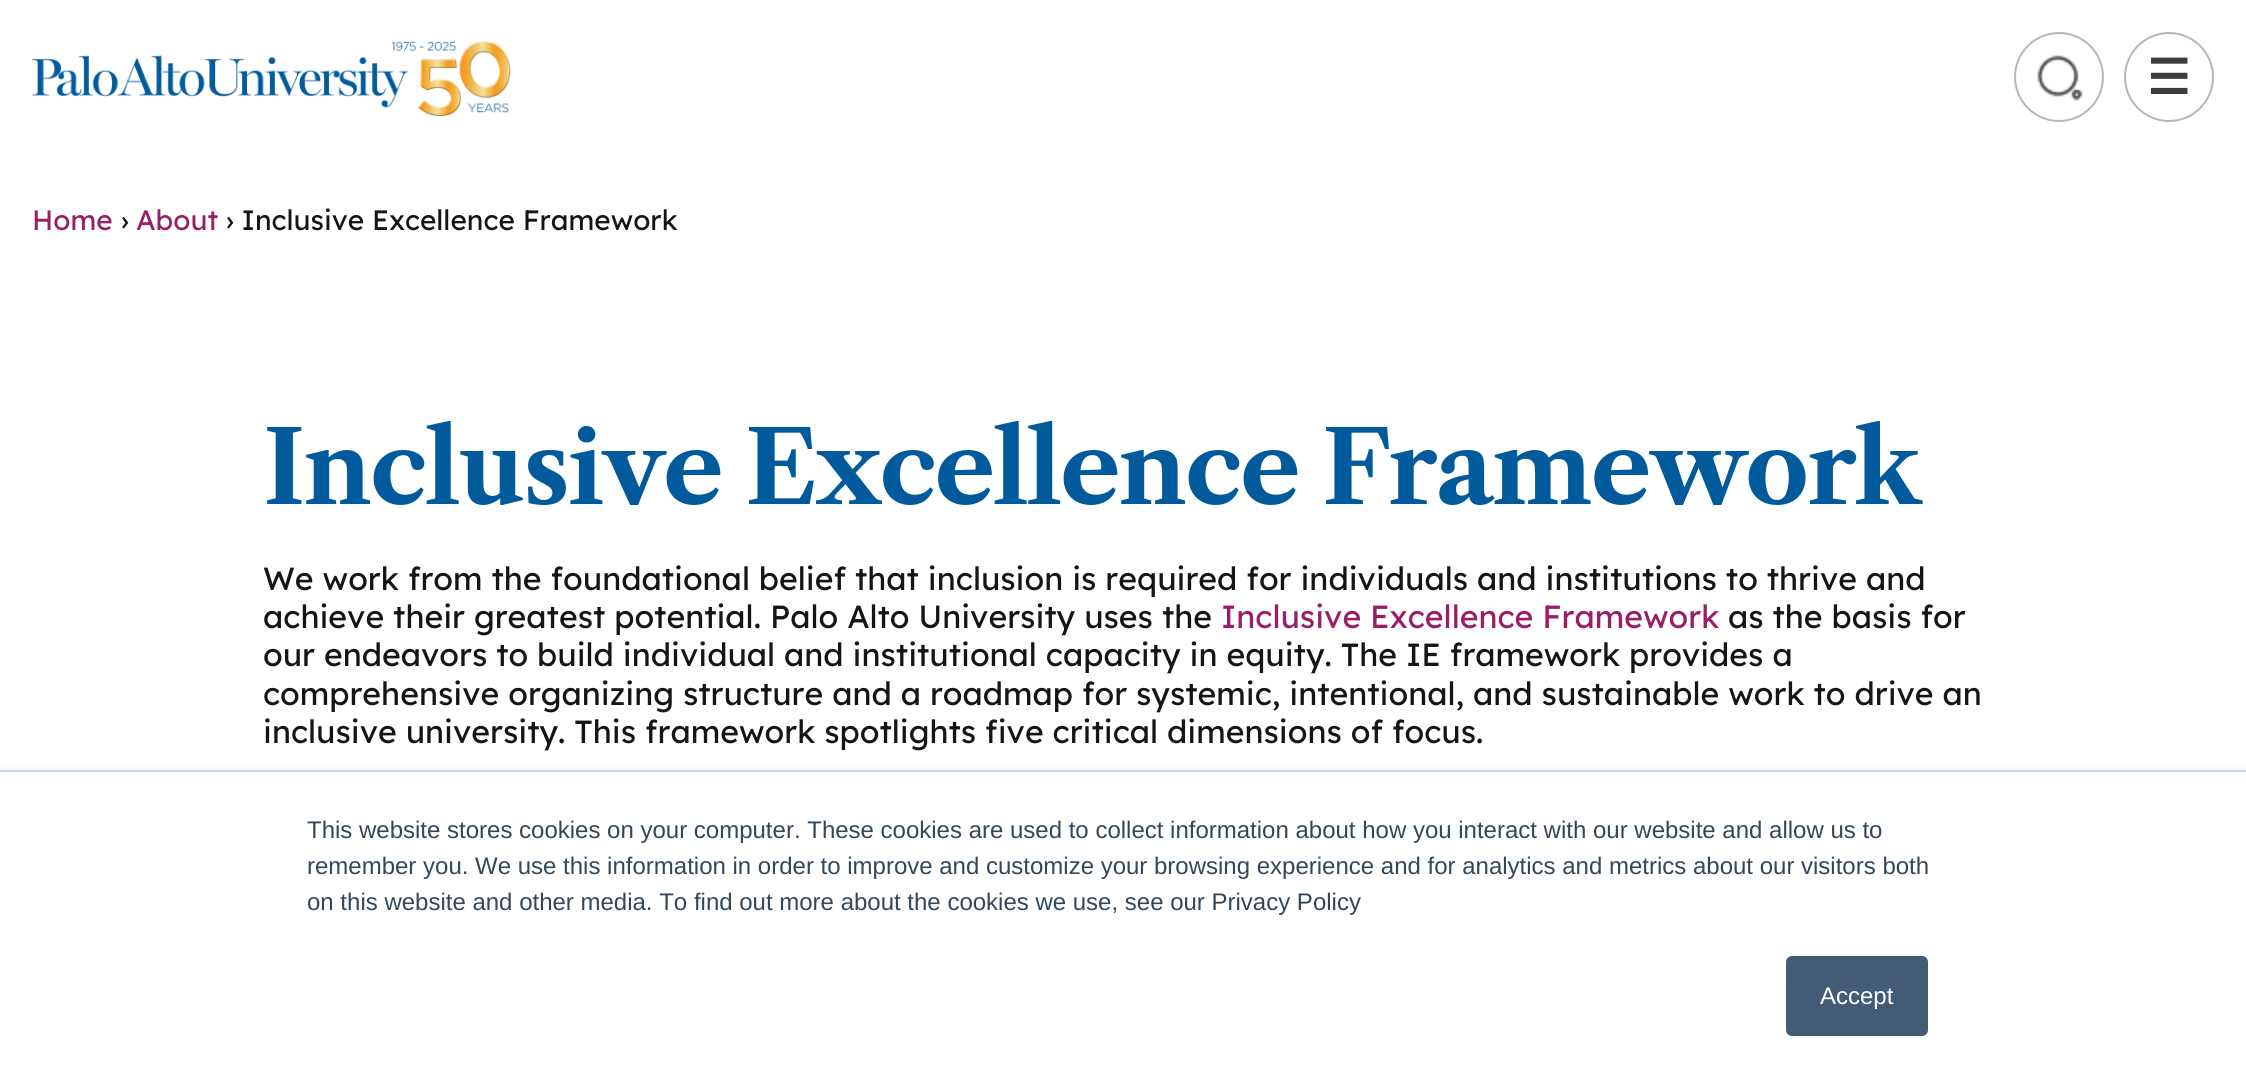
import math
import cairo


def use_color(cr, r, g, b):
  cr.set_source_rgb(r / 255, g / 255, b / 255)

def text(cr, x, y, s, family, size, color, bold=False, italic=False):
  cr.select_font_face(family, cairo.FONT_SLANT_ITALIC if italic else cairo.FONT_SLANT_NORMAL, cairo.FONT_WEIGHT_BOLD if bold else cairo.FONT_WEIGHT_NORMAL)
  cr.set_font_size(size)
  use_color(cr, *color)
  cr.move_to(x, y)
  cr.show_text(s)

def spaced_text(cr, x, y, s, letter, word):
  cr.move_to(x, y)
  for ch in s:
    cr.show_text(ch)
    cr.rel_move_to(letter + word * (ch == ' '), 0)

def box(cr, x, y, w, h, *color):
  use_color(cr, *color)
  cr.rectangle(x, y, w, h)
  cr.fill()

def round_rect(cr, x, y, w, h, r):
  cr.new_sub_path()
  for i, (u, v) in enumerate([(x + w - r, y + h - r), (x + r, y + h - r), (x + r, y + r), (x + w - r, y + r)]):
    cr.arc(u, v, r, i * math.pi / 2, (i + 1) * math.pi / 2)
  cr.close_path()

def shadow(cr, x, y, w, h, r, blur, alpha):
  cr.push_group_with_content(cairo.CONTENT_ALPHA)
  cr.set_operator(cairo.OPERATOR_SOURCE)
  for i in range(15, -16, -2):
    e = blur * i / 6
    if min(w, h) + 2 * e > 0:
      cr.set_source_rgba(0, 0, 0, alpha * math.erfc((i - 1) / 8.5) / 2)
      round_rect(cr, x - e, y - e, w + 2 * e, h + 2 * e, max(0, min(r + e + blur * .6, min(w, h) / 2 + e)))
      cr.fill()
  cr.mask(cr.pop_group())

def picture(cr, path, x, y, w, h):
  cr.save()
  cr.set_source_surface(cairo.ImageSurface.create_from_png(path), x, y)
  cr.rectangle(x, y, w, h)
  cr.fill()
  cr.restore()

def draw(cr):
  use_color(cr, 255, 255, 255)
  cr.paint()
  picture(cr, "img_01.png", 32, 40, 479, 76)
  cr.arc(2059, 77, 44, 0, 2 * math.pi)
  use_color(cr, 181, 184, 186)
  cr.stroke()
  picture(cr, "img_02.png", 2037, 55, 46, 46)
  cr.arc(2169, 77, 44, 0, 2 * math.pi)
  cr.stroke()
  use_color(cr, 234, 240, 246)
  shadow(cr, 0, 768, 2246, 318, 0, 3, 1)
  box(cr, 0, 772, 2246, 315, 255, 255, 255)
  box(cr, 0, 770, 2246, 2, 203, 214, 226)
  use_color(cr, 66, 91, 118)
  round_rect(cr, 1787, 957, 140, 78, 5)
  cr.fill_preserve()
  cr.stroke()
  text(cr, 2147, 94, "☰", "DejaVu Sans", 48, (59, 62, 64), bold=True)
  text(cr, 32, 230, "Home", "Lexend", 28, (153, 30, 102))
  text(cr, 121, 230, "›", "Lexend", 28, (20, 21, 21))
  text(cr, 136, 230, "About", "Lexend", 28, (153, 30, 102))
  text(cr, 226, 230, "› Inclusive Excellence Framework", "Lexend", 28, (20, 21, 21))
  cr.select_font_face("Libre Caslon Text", cairo.FONT_SLANT_NORMAL, cairo.FONT_WEIGHT_BOLD)
  cr.set_font_size(100)
  use_color(cr, 0, 90, 156)
  spaced_text(cr, 263, 504, "Inclusive Excellence Framework", -2, 0)
  text(cr, 263, 590, "We work from the foundational belief that inclusion is required for individuals and institutions to thrive and", "Lexend", 32, (20, 21, 21))
  text(cr, 263, 628, "achieve their greatest potential. Palo Alto University uses the", "Lexend", 32, (20, 21, 21))
  text(cr, 1221, 628, "Inclusive Excellence Framework", "Lexend", 32, (153, 30, 102))
  text(cr, 1728, 628, "as the basis for", "Lexend", 32, (20, 21, 21))
  text(cr, 263, 666, "our endeavors to build individual and institutional capacity in equity. The IE framework provides a", "Lexend", 32, (20, 21, 21))
  text(cr, 263, 705, "comprehensive organizing structure and a roadmap for systemic, intentional, and sustainable work to drive an", "Lexend", 32, (20, 21, 21))
  text(cr, 263, 743, "inclusive university. This framework spotlights five critical dimensions of focus.", "Lexend", 32, (20, 21, 21))
  text(cr, 307, 838, "This website stores cookies on your computer. These cookies are used to collect information about how you interact with our website and allow us to", "Liberation Sans", 24, (51, 71, 91))
  text(cr, 307, 874, "remember you. We use this information in order to improve and customize your browsing experience and for analytics and metrics about our visitors both", "Liberation Sans", 24, (51, 71, 91))
  text(cr, 307, 910, "on this website and other media. To find out more about the cookies we use, see our Privacy Policy", "Liberation Sans", 24, (51, 71, 91))
  text(cr, 1820, 1004, "Accept", "Liberation Sans", 24, (255, 255, 255))


surface = cairo.ImageSurface(cairo.FORMAT_RGB24, 2246, 1087)
cr = cairo.Context(surface)
options = cairo.FontOptions()
options.set_hint_metrics(cairo.HINT_METRICS_OFF)
options.set_hint_style(cairo.HINT_STYLE_NONE)
cr.set_font_options(options)
cr.set_miter_limit(4)
draw(cr)
surface.write_to_png("out.png")
